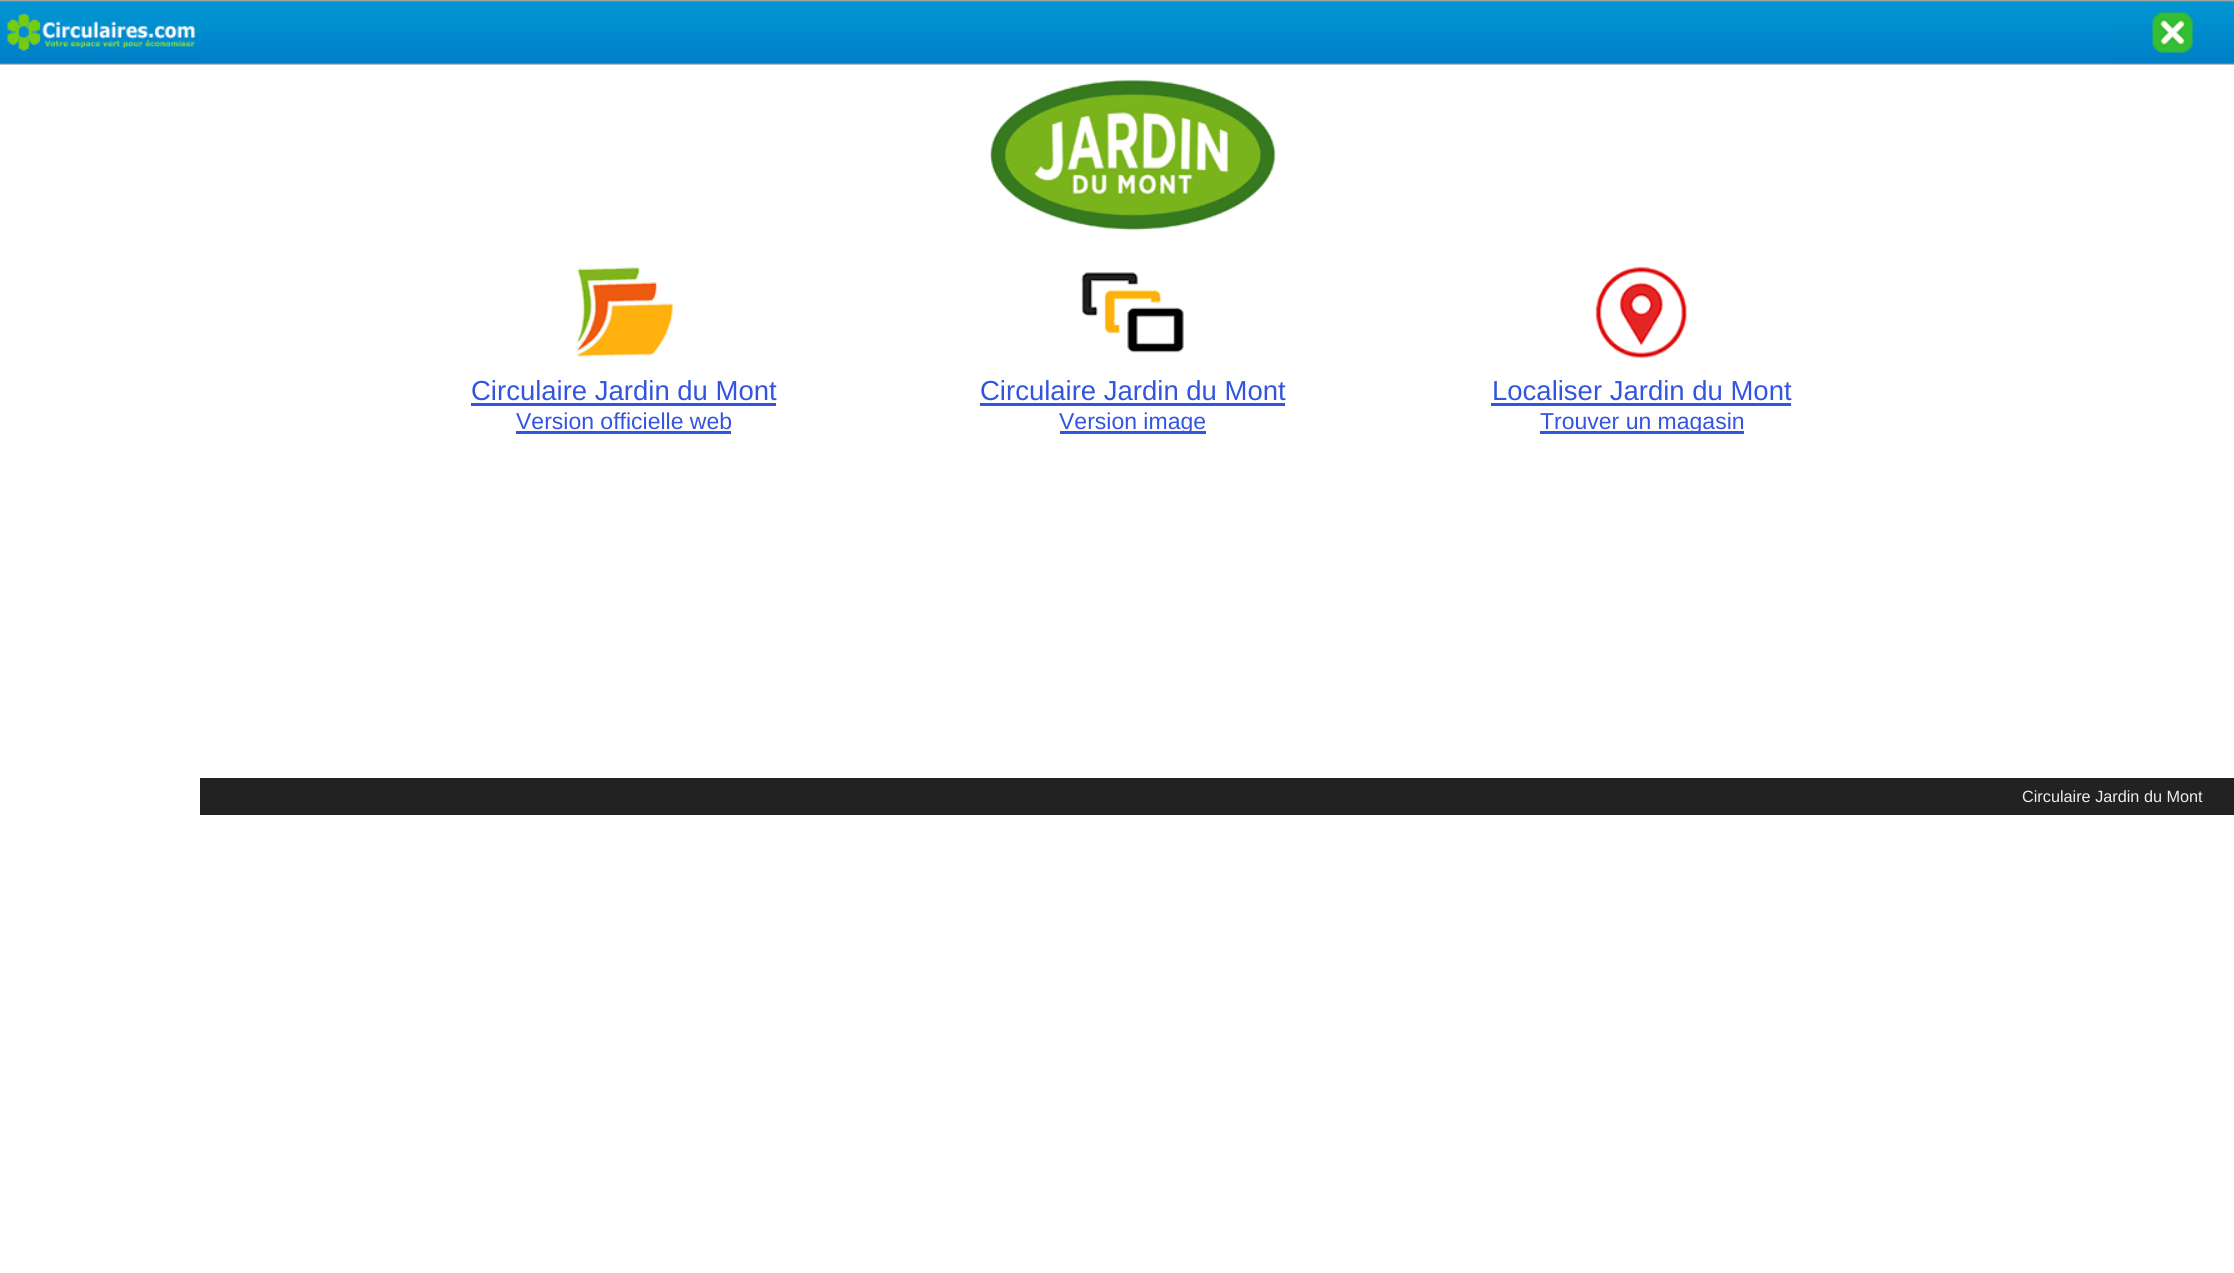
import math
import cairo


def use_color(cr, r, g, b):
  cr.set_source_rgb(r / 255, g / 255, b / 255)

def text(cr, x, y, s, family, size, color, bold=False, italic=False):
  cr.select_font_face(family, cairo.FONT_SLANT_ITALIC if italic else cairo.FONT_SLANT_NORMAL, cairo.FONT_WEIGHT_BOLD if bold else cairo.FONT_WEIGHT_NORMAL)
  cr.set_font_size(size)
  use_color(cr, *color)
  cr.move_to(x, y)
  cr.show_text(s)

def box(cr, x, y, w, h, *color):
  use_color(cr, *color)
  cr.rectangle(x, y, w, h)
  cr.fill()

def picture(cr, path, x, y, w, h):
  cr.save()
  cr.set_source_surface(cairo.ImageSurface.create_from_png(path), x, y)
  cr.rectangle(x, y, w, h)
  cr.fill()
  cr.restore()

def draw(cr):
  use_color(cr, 255, 255, 255)
  cr.paint()
  picture(cr, "img_01.png", 0, 0, 2234, 65)
  picture(cr, "img_02.png", 0, 13, 200, 51)
  picture(cr, "img_03.png", 2110, 12, 124, 52)
  picture(cr, "img_04.png", 990, 79, 286, 152)
  picture(cr, "img_05.png", 575, 267, 100, 90)
  box(cr, 471, 403, 305, 3, 51, 85, 221)
  box(cr, 516, 431, 215, 3, 51, 85, 221)
  picture(cr, "img_06.png", 1081, 272, 103, 81)
  box(cr, 980, 403, 305, 3, 51, 85, 221)
  box(cr, 1060, 431, 146, 3, 51, 85, 221)
  picture(cr, "img_07.png", 1595, 266, 92, 93)
  box(cr, 1491, 403, 300, 3, 51, 85, 221)
  box(cr, 1540, 431, 204, 3, 51, 85, 221)
  box(cr, 200, 778, 2034, 37, 34, 34, 34)
  text(cr, 471, 400, "Circulaire Jardin du Mont", "Liberation Sans", 27.5, (51, 85, 221))
  text(cr, 516, 429, "Version officielle web", "Liberation Sans", 23, (51, 85, 221))
  text(cr, 980, 400, "Circulaire Jardin du Mont", "Liberation Sans", 27.5, (51, 85, 221))
  text(cr, 1059, 429, "Version image", "Liberation Sans", 23, (51, 85, 221))
  text(cr, 1492, 400, "Localiser Jardin du Mont", "Liberation Sans", 27.5, (51, 85, 221))
  text(cr, 1540, 429, "Trouver un magasin", "Liberation Sans", 23, (51, 85, 221))
  text(cr, 2022, 802, "Circulaire Jardin du Mont", "Liberation Sans", 16.25, (238, 238, 238))


surface = cairo.ImageSurface(cairo.FORMAT_RGB24, 2234, 1273)
cr = cairo.Context(surface)
options = cairo.FontOptions()
options.set_hint_metrics(cairo.HINT_METRICS_OFF)
options.set_hint_style(cairo.HINT_STYLE_NONE)
cr.set_font_options(options)
cr.set_miter_limit(4)
draw(cr)
surface.write_to_png("out.png")
